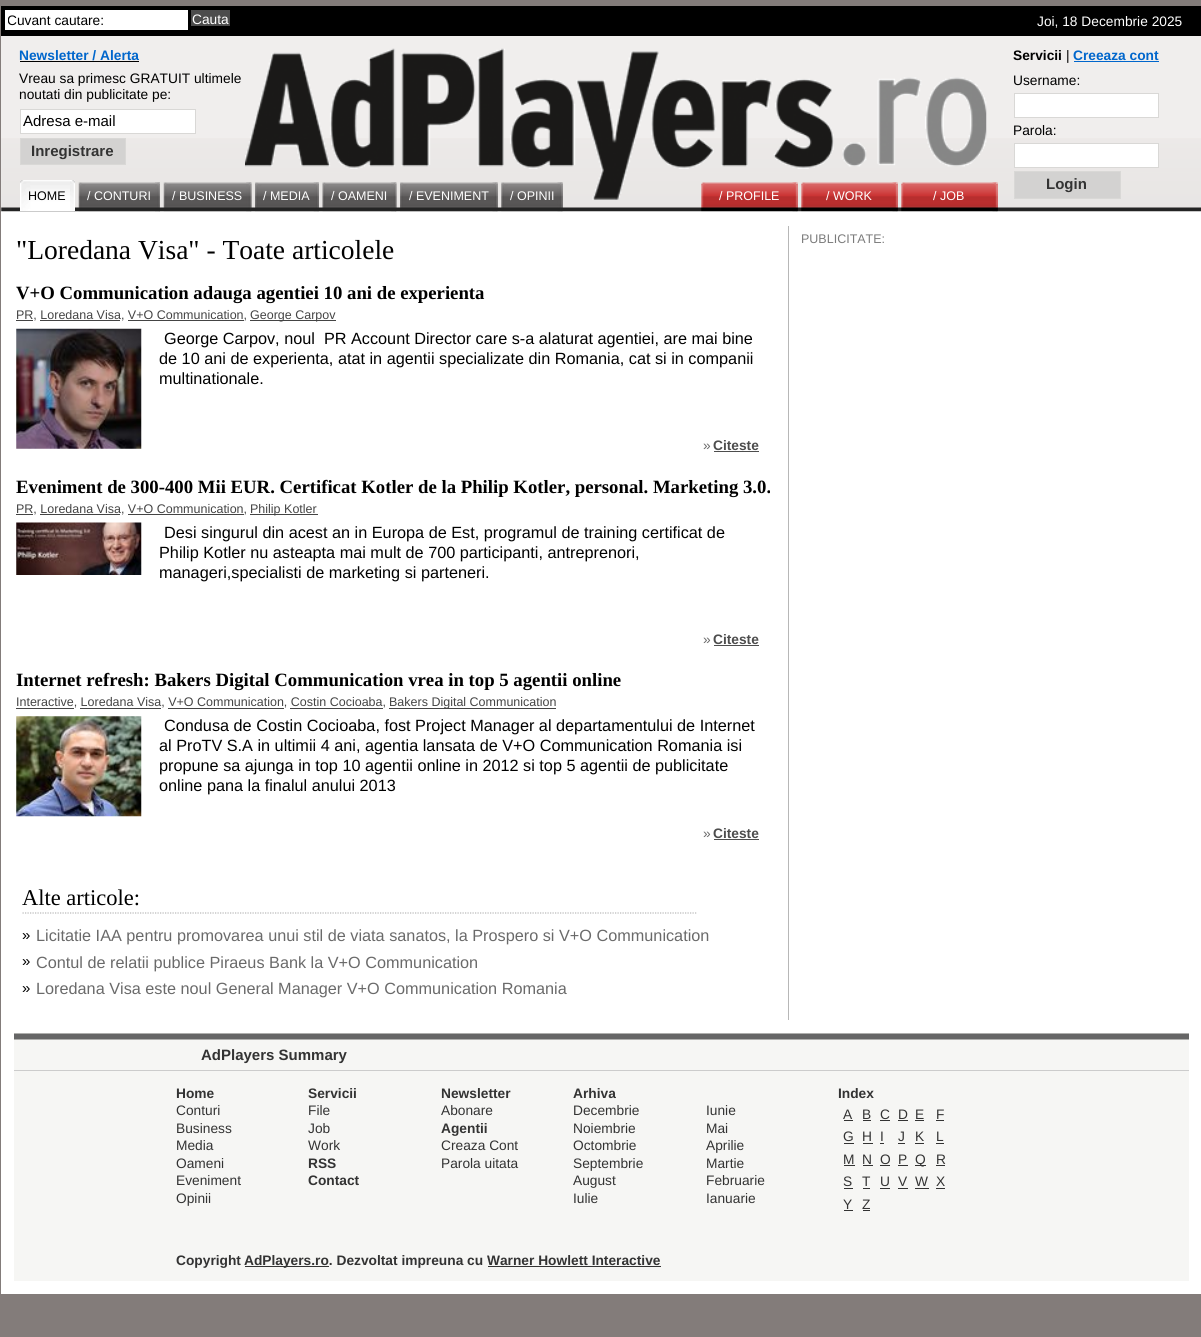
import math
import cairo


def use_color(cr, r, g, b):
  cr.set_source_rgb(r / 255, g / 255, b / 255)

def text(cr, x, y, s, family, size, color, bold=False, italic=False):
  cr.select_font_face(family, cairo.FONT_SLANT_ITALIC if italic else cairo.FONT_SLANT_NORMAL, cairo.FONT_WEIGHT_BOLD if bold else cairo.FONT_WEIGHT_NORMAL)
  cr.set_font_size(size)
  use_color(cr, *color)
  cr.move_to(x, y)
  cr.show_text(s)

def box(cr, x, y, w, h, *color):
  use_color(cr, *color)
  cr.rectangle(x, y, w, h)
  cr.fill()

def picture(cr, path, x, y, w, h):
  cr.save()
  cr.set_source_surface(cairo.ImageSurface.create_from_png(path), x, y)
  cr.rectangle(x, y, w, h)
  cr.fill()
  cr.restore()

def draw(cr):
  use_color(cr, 131, 124, 122)
  cr.paint()
  box(cr, 1, 211, 1200, 1083, 255, 255, 255)
  box(cr, 1, 36, 1200, 175, 240, 238, 237)
  picture(cr, "img_01.png", 1, 138, 1200, 74)
  box(cr, 1, 6, 1200, 30, 0, 0, 0)
  box(cr, 5, 10, 183, 20, 255, 255, 255)
  box(cr, 191, 10, 39, 16, 76, 76, 76)
  picture(cr, "img_02.png", 245, 48, 742, 152)
  box(cr, 20, 61, 119, 1, 0, 0, 0)
  use_color(cr, 255, 255, 255)
  cr.rectangle(20.5, 109.5, 175, 24)
  cr.fill_preserve()
  use_color(cr, 217, 216, 214)
  cr.set_line_width(1)
  cr.stroke()
  use_color(cr, 211, 210, 209)
  cr.rectangle(20.5, 138.5, 105, 26)
  cr.fill_preserve()
  use_color(cr, 217, 216, 214)
  cr.stroke()
  box(cr, 1074, 61, 85, 1, 0, 102, 204)
  use_color(cr, 255, 255, 255)
  cr.rectangle(1014.5, 93.5, 144, 24)
  cr.fill_preserve()
  use_color(cr, 217, 216, 214)
  cr.stroke()
  use_color(cr, 255, 255, 255)
  cr.rectangle(1014.5, 143.5, 144, 24)
  cr.fill_preserve()
  use_color(cr, 217, 216, 214)
  cr.stroke()
  use_color(cr, 211, 210, 209)
  cr.rectangle(1014.5, 171.5, 106, 27)
  cr.fill_preserve()
  use_color(cr, 217, 216, 214)
  cr.stroke()
  picture(cr, "img_03.png", 74, 211, 1, 1)
  picture(cr, "img_04.png", 20, 180, 55, 32)
  picture(cr, "img_05.png", 70, 180, 5, 30)
  picture(cr, "img_06.png", 158, 182, 2, 30)
  picture(cr, "img_07.png", 78, 182, 82, 30)
  picture(cr, "img_08.png", 155, 182, 5, 30)
  picture(cr, "img_09.png", 250, 182, 2, 30)
  picture(cr, "img_10.png", 163, 182, 89, 30)
  picture(cr, "img_11.png", 246, 182, 6, 30)
  picture(cr, "img_12.png", 317, 182, 2, 30)
  picture(cr, "img_13.png", 255, 182, 64, 30)
  picture(cr, "img_14.png", 313, 182, 6, 30)
  picture(cr, "img_09.png", 395, 182, 2, 30)
  picture(cr, "img_15.png", 322, 182, 75, 30)
  picture(cr, "img_11.png", 391, 182, 6, 30)
  picture(cr, "img_16.png", 496, 182, 2, 30)
  picture(cr, "img_17.png", 400, 182, 98, 30)
  picture(cr, "img_18.png", 492, 182, 6, 30)
  picture(cr, "img_16.png", 561, 182, 2, 30)
  picture(cr, "img_19.png", 501, 182, 62, 30)
  picture(cr, "img_18.png", 557, 182, 6, 30)
  picture(cr, "img_20.png", 796, 182, 2, 30)
  picture(cr, "img_21.png", 701, 182, 97, 30)
  picture(cr, "img_22.png", 792, 182, 6, 30)
  picture(cr, "img_20.png", 896, 182, 2, 30)
  picture(cr, "img_21.png", 801, 182, 97, 30)
  picture(cr, "img_22.png", 892, 182, 6, 30)
  picture(cr, "img_20.png", 996, 182, 2, 30)
  picture(cr, "img_21.png", 901, 182, 97, 30)
  picture(cr, "img_22.png", 992, 182, 6, 30)
  box(cr, 788, 226, 1, 794, 183, 183, 183)
  box(cr, 16, 320, 17, 1, 68, 68, 68)
  box(cr, 250, 320, 86, 1, 68, 68, 68)
  box(cr, 40, 320, 80, 1, 68, 68, 68)
  box(cr, 128, 320, 116, 1, 68, 68, 68)
  picture(cr, "img_23.png", 16, 328, 126, 121)
  box(cr, 714, 451, 45, 1, 77, 77, 77)
  box(cr, 16, 514, 17, 1, 68, 68, 68)
  box(cr, 250, 514, 68, 1, 68, 68, 68)
  box(cr, 40, 514, 80, 1, 68, 68, 68)
  box(cr, 128, 514, 116, 1, 68, 68, 68)
  picture(cr, "img_24.png", 16, 522, 126, 53)
  box(cr, 714, 645, 45, 1, 77, 77, 77)
  box(cr, 16, 708, 58, 1, 68, 68, 68)
  box(cr, 389, 708, 167, 1, 68, 68, 68)
  box(cr, 80, 708, 81, 1, 68, 68, 68)
  box(cr, 168, 708, 116, 1, 68, 68, 68)
  box(cr, 290, 708, 93, 1, 68, 68, 68)
  picture(cr, "img_25.png", 16, 716, 126, 101)
  box(cr, 714, 839, 45, 1, 77, 77, 77)
  cr.new_path()
  cr.move_to(22.5, 913)
  cr.line_to(697.5, 913)
  use_color(cr, 183, 183, 183)
  cr.set_line_width(1.2)
  cr.set_dash([1.25, 1.25])
  cr.stroke()
  box(cr, 14, 1040, 1175, 241, 246, 246, 244)
  box(cr, 14, 1034, 1175, 5, 102, 102, 102)
  box(cr, 14, 1033, 1175, 1, 175, 175, 173)
  box(cr, 14, 1039, 1175, 1, 175, 175, 173)
  box(cr, 14, 1070, 1175, 1, 204, 204, 204)
  box(cr, 844, 1120, 9, 1, 51, 51, 51)
  box(cr, 863, 1120, 8, 1, 51, 51, 51)
  box(cr, 880, 1120, 10, 1, 51, 51, 51)
  box(cr, 898, 1120, 10, 1, 51, 51, 51)
  box(cr, 915, 1120, 9, 1, 51, 51, 51)
  box(cr, 936, 1120, 8, 1, 51, 51, 51)
  box(cr, 844, 1143, 10, 1, 51, 51, 51)
  box(cr, 863, 1143, 10, 1, 51, 51, 51)
  box(cr, 880, 1143, 4, 1, 51, 51, 51)
  box(cr, 898, 1143, 7, 1, 51, 51, 51)
  box(cr, 915, 1143, 9, 1, 51, 51, 51)
  box(cr, 936, 1143, 8, 1, 51, 51, 51)
  box(cr, 844, 1165, 11, 1, 51, 51, 51)
  box(cr, 863, 1165, 10, 1, 51, 51, 51)
  box(cr, 880, 1165, 10, 1, 51, 51, 51)
  box(cr, 898, 1165, 10, 1, 51, 51, 51)
  box(cr, 915, 1165, 11, 1, 51, 51, 51)
  box(cr, 936, 1165, 9, 1, 51, 51, 51)
  box(cr, 844, 1188, 9, 1, 51, 51, 51)
  box(cr, 863, 1188, 7, 1, 51, 51, 51)
  box(cr, 880, 1188, 10, 1, 51, 51, 51)
  box(cr, 898, 1188, 10, 1, 51, 51, 51)
  box(cr, 915, 1188, 14, 1, 51, 51, 51)
  box(cr, 936, 1188, 9, 1, 51, 51, 51)
  box(cr, 844, 1210, 9, 1, 51, 51, 51)
  box(cr, 863, 1210, 7, 1, 51, 51, 51)
  box(cr, 245, 1266, 84, 1, 51, 51, 51)
  box(cr, 488, 1266, 173, 1, 51, 51, 51)
  cr.save()
  cr.rectangle(8, 13, 177, 15)
  cr.clip()
  text(cr, 7, 25, "Cuvant cautare:", "Liberation Sans", 13.75, (0, 0, 0))
  cr.restore()
  text(cr, 192, 24, "Cauta", "Liberation Sans", 13.75, (255, 255, 255))
  text(cr, 1037, 26, "Joi, 18 Decembrie 2025", "Liberation Sans", 13.75, (255, 255, 255))
  text(cr, 19, 60, "Newsletter / Alerta", "Liberation Sans", 13.75, (0, 102, 204), bold=True)
  text(cr, 19, 83, "Vreau sa primesc GRATUIT ultimele", "Liberation Sans", 13.75, (0, 0, 0))
  text(cr, 19, 99, "noutati din publicitate pe:", "Liberation Sans", 13.75, (0, 0, 0))
  text(cr, 23, 126, "Adresa e-mail", "Liberation Sans", 15, (0, 0, 0))
  text(cr, 31, 156, "Inregistrare", "Liberation Sans", 15, (51, 51, 51), bold=True)
  text(cr, 1013, 60, "Servicii", "Liberation Sans", 13.75, (0, 0, 0), bold=True)
  text(cr, 1066, 60, "|", "Liberation Sans", 13.75, (0, 0, 0))
  text(cr, 1073, 60, "Creeaza cont", "Liberation Sans", 13.75, (0, 102, 204), bold=True)
  text(cr, 1013, 85, "Username:", "Liberation Sans", 13.75, (0, 0, 0))
  text(cr, 1013, 135, "Parola:", "Liberation Sans", 13.75, (0, 0, 0))
  text(cr, 1046, 189, "Login", "Liberation Sans", 15, (51, 51, 51), bold=True)
  text(cr, 28, 200, "HOME", "Liberation Sans", 12.5, (0, 0, 0))
  text(cr, 87, 200, "/ CONTURI", "Liberation Sans", 12.5, (255, 255, 255))
  text(cr, 172, 200, "/ BUSINESS", "Liberation Sans", 12.5, (255, 255, 255))
  text(cr, 263, 200, "/ MEDIA", "Liberation Sans", 12.5, (255, 255, 255))
  text(cr, 331, 200, "/ OAMENI", "Liberation Sans", 12.5, (255, 255, 255))
  text(cr, 409, 200, "/ EVENIMENT", "Liberation Sans", 12.5, (255, 255, 255))
  text(cr, 510, 200, "/ OPINII", "Liberation Sans", 12.5, (255, 255, 255))
  text(cr, 719, 200, "/ PROFILE", "Liberation Sans", 12.5, (255, 255, 255))
  text(cr, 826, 200, "/ WORK", "Liberation Sans", 12.5, (255, 255, 255))
  text(cr, 933, 200, "/ JOB", "Liberation Sans", 12.5, (255, 255, 255))
  text(cr, 16, 259, "\"Loredana Visa\" - Toate articolele", "Liberation Serif", 27.5, (0, 0, 0))
  text(cr, 16, 299, "V+O Communication adauga agentiei 10 ani de experienta", "Liberation Serif", 18.75, (0, 0, 0), bold=True)
  text(cr, 16, 319, "PR, Loredana Visa, V+O Communication,", "Liberation Sans", 12.5, (68, 68, 68))
  text(cr, 250, 319, "George Carpov", "Liberation Sans", 12.5, (68, 68, 68))
  text(cr, 164, 344, "George Carpov, noul  PR Account Director care s-a alaturat agentiei, are mai bine", "Liberation Sans", 16.25, (0, 0, 0))
  text(cr, 159, 364, "de 10 ani de experienta, atat in agentii specializate din Romania, cat si in companii", "Liberation Sans", 16.25, (0, 0, 0))
  text(cr, 159, 384, "multinationale.", "Liberation Sans", 16.25, (0, 0, 0))
  text(cr, 703, 450, "»", "Liberation Sans", 13.75, (106, 106, 106))
  text(cr, 713, 450, "Citeste", "Liberation Sans", 13.75, (77, 77, 77), bold=True)
  text(cr, 16, 493, "Eveniment de 300-400 Mii EUR. Certificat Kotler de la Philip Kotler, personal. Marketing 3.0.", "Liberation Serif", 18.75, (0, 0, 0), bold=True)
  text(cr, 16, 513, "PR, Loredana Visa, V+O Communication,", "Liberation Sans", 12.5, (68, 68, 68))
  text(cr, 250, 513, "Philip Kotler", "Liberation Sans", 12.5, (68, 68, 68))
  text(cr, 164, 538, "Desi singurul din acest an in Europa de Est, programul de training certificat de", "Liberation Sans", 16.25, (0, 0, 0))
  text(cr, 159, 558, "Philip Kotler nu asteapta mai mult de 700 participanti, antreprenori,", "Liberation Sans", 16.25, (0, 0, 0))
  text(cr, 159, 578, "manageri,specialisti de marketing si parteneri.", "Liberation Sans", 16.25, (0, 0, 0))
  text(cr, 703, 644, "»", "Liberation Sans", 13.75, (106, 106, 106))
  text(cr, 713, 644, "Citeste", "Liberation Sans", 13.75, (77, 77, 77), bold=True)
  text(cr, 16, 686, "Internet refresh: Bakers Digital Communication vrea in top 5 agentii online", "Liberation Serif", 18.75, (0, 0, 0), bold=True)
  text(cr, 16, 706, "Interactive, Loredana Visa, V+O Communication, Costin Cocioaba,", "Liberation Sans", 12.5, (68, 68, 68))
  text(cr, 389, 706, "Bakers Digital Communication", "Liberation Sans", 12.5, (68, 68, 68))
  text(cr, 164, 731, "Condusa de Costin Cocioaba, fost Project Manager al departamentului de Internet", "Liberation Sans", 16.25, (0, 0, 0))
  text(cr, 159, 751, "al ProTV S.A in ultimii 4 ani, agentia lansata de V+O Communication Romania isi", "Liberation Sans", 16.25, (0, 0, 0))
  text(cr, 159, 771, "propune sa ajunga in top 10 agentii online in 2012 si top 5 agentii de publicitate", "Liberation Sans", 16.25, (0, 0, 0))
  text(cr, 159, 791, "online pana la finalul anului 2013", "Liberation Sans", 16.25, (0, 0, 0))
  text(cr, 703, 838, "»", "Liberation Sans", 13.75, (106, 106, 106))
  text(cr, 713, 838, "Citeste", "Liberation Sans", 13.75, (77, 77, 77), bold=True)
  text(cr, 22, 905, "Alte articole:", "Liberation Serif", 22.5, (0, 0, 0))
  text(cr, 22, 940, "»", "Liberation Sans", 15, (0, 0, 0))
  text(cr, 36, 941, "Licitatie IAA pentru promovarea unui stil de viata sanatos, la Prospero si V+O Communication", "Liberation Sans", 16.25, (106, 106, 106))
  text(cr, 22, 966, "»", "Liberation Sans", 15, (0, 0, 0))
  text(cr, 36, 968, "Contul de relatii publice Piraeus Bank la V+O Communication", "Liberation Sans", 16.25, (106, 106, 106))
  text(cr, 22, 993, "»", "Liberation Sans", 15, (0, 0, 0))
  text(cr, 36, 994, "Loredana Visa este noul General Manager V+O Communication Romania", "Liberation Sans", 16.25, (106, 106, 106))
  text(cr, 801, 243, "PUBLICITATE:", "Liberation Sans", 12.5, (123, 123, 123))
  text(cr, 201, 1060, "AdPlayers Summary", "Liberation Sans", 15, (51, 51, 51), bold=True)
  text(cr, 176, 1098, "Home", "Liberation Sans", 13.75, (51, 51, 51), bold=True)
  text(cr, 176, 1115, "Conturi", "Liberation Sans", 13.75, (51, 51, 51))
  text(cr, 176, 1133, "Business", "Liberation Sans", 13.75, (51, 51, 51))
  text(cr, 176, 1150, "Media", "Liberation Sans", 13.75, (51, 51, 51))
  text(cr, 176, 1168, "Oameni", "Liberation Sans", 13.75, (51, 51, 51))
  text(cr, 176, 1185, "Eveniment", "Liberation Sans", 13.75, (51, 51, 51))
  text(cr, 176, 1203, "Opinii", "Liberation Sans", 13.75, (51, 51, 51))
  text(cr, 308, 1098, "Servicii", "Liberation Sans", 13.75, (51, 51, 51), bold=True)
  text(cr, 308, 1115, "File", "Liberation Sans", 13.75, (51, 51, 51))
  text(cr, 308, 1133, "Job", "Liberation Sans", 13.75, (51, 51, 51))
  text(cr, 308, 1150, "Work", "Liberation Sans", 13.75, (51, 51, 51))
  text(cr, 308, 1168, "RSS", "Liberation Sans", 13.75, (51, 51, 51), bold=True)
  text(cr, 308, 1185, "Contact", "Liberation Sans", 13.75, (51, 51, 51), bold=True)
  text(cr, 441, 1098, "Newsletter", "Liberation Sans", 13.75, (51, 51, 51), bold=True)
  text(cr, 441, 1115, "Abonare", "Liberation Sans", 13.75, (51, 51, 51))
  text(cr, 441, 1133, "Agentii", "Liberation Sans", 13.75, (51, 51, 51), bold=True)
  text(cr, 441, 1150, "Creaza Cont", "Liberation Sans", 13.75, (51, 51, 51))
  text(cr, 441, 1168, "Parola uitata", "Liberation Sans", 13.75, (51, 51, 51))
  text(cr, 573, 1098, "Arhiva", "Liberation Sans", 13.75, (51, 51, 51), bold=True)
  text(cr, 573, 1115, "Decembrie", "Liberation Sans", 13.75, (51, 51, 51))
  text(cr, 573, 1133, "Noiembrie", "Liberation Sans", 13.75, (51, 51, 51))
  text(cr, 573, 1150, "Octombrie", "Liberation Sans", 13.75, (51, 51, 51))
  text(cr, 573, 1168, "Septembrie", "Liberation Sans", 13.75, (51, 51, 51))
  text(cr, 573, 1185, "August", "Liberation Sans", 13.75, (51, 51, 51))
  text(cr, 573, 1203, "Iulie", "Liberation Sans", 13.75, (51, 51, 51))
  text(cr, 706, 1115, "Iunie", "Liberation Sans", 13.75, (51, 51, 51))
  text(cr, 706, 1133, "Mai", "Liberation Sans", 13.75, (51, 51, 51))
  text(cr, 706, 1150, "Aprilie", "Liberation Sans", 13.75, (51, 51, 51))
  text(cr, 706, 1168, "Martie", "Liberation Sans", 13.75, (51, 51, 51))
  text(cr, 706, 1185, "Februarie", "Liberation Sans", 13.75, (51, 51, 51))
  text(cr, 706, 1203, "Ianuarie", "Liberation Sans", 13.75, (51, 51, 51))
  text(cr, 838, 1098, "Index", "Liberation Sans", 13.75, (51, 51, 51), bold=True)
  text(cr, 843, 1119, "A", "Liberation Sans", 13.75, (51, 51, 51))
  text(cr, 862, 1119, "B", "Liberation Sans", 13.75, (51, 51, 51))
  text(cr, 880, 1119, "C", "Liberation Sans", 13.75, (51, 51, 51))
  text(cr, 898, 1119, "D", "Liberation Sans", 13.75, (51, 51, 51))
  text(cr, 915, 1119, "E", "Liberation Sans", 13.75, (51, 51, 51))
  text(cr, 936, 1119, "F", "Liberation Sans", 13.75, (51, 51, 51))
  text(cr, 843, 1141, "G", "Liberation Sans", 13.75, (51, 51, 51))
  text(cr, 862, 1141, "H", "Liberation Sans", 13.75, (51, 51, 51))
  text(cr, 880, 1141, "I", "Liberation Sans", 13.75, (51, 51, 51))
  text(cr, 898, 1141, "J", "Liberation Sans", 13.75, (51, 51, 51))
  text(cr, 915, 1141, "K", "Liberation Sans", 13.75, (51, 51, 51))
  text(cr, 936, 1141, "L", "Liberation Sans", 13.75, (51, 51, 51))
  text(cr, 843, 1164, "M", "Liberation Sans", 13.75, (51, 51, 51))
  text(cr, 862, 1164, "N", "Liberation Sans", 13.75, (51, 51, 51))
  text(cr, 880, 1164, "O", "Liberation Sans", 13.75, (51, 51, 51))
  text(cr, 898, 1164, "P", "Liberation Sans", 13.75, (51, 51, 51))
  text(cr, 915, 1164, "Q", "Liberation Sans", 13.75, (51, 51, 51))
  text(cr, 936, 1164, "R", "Liberation Sans", 13.75, (51, 51, 51))
  text(cr, 843, 1186, "S", "Liberation Sans", 13.75, (51, 51, 51))
  text(cr, 862, 1186, "T", "Liberation Sans", 13.75, (51, 51, 51))
  text(cr, 880, 1186, "U", "Liberation Sans", 13.75, (51, 51, 51))
  text(cr, 898, 1186, "V", "Liberation Sans", 13.75, (51, 51, 51))
  text(cr, 915, 1186, "W", "Liberation Sans", 13.75, (51, 51, 51))
  text(cr, 936, 1186, "X", "Liberation Sans", 13.75, (51, 51, 51))
  text(cr, 843, 1209, "Y", "Liberation Sans", 13.75, (51, 51, 51))
  text(cr, 862, 1209, "Z", "Liberation Sans", 13.75, (51, 51, 51))
  text(cr, 176, 1265, "Copyright", "Liberation Sans", 13.75, (51, 51, 51), bold=True)
  text(cr, 244, 1265, "AdPlayers.ro. Dezvoltat impreuna cu Warner Howlett Interactive", "Liberation Sans", 13.75, (51, 51, 51), bold=True)


surface = cairo.ImageSurface(cairo.FORMAT_RGB24, 1201, 1337)
cr = cairo.Context(surface)
options = cairo.FontOptions()
options.set_hint_metrics(cairo.HINT_METRICS_OFF)
options.set_hint_style(cairo.HINT_STYLE_NONE)
cr.set_font_options(options)
cr.set_miter_limit(4)
draw(cr)
surface.write_to_png("out.png")
